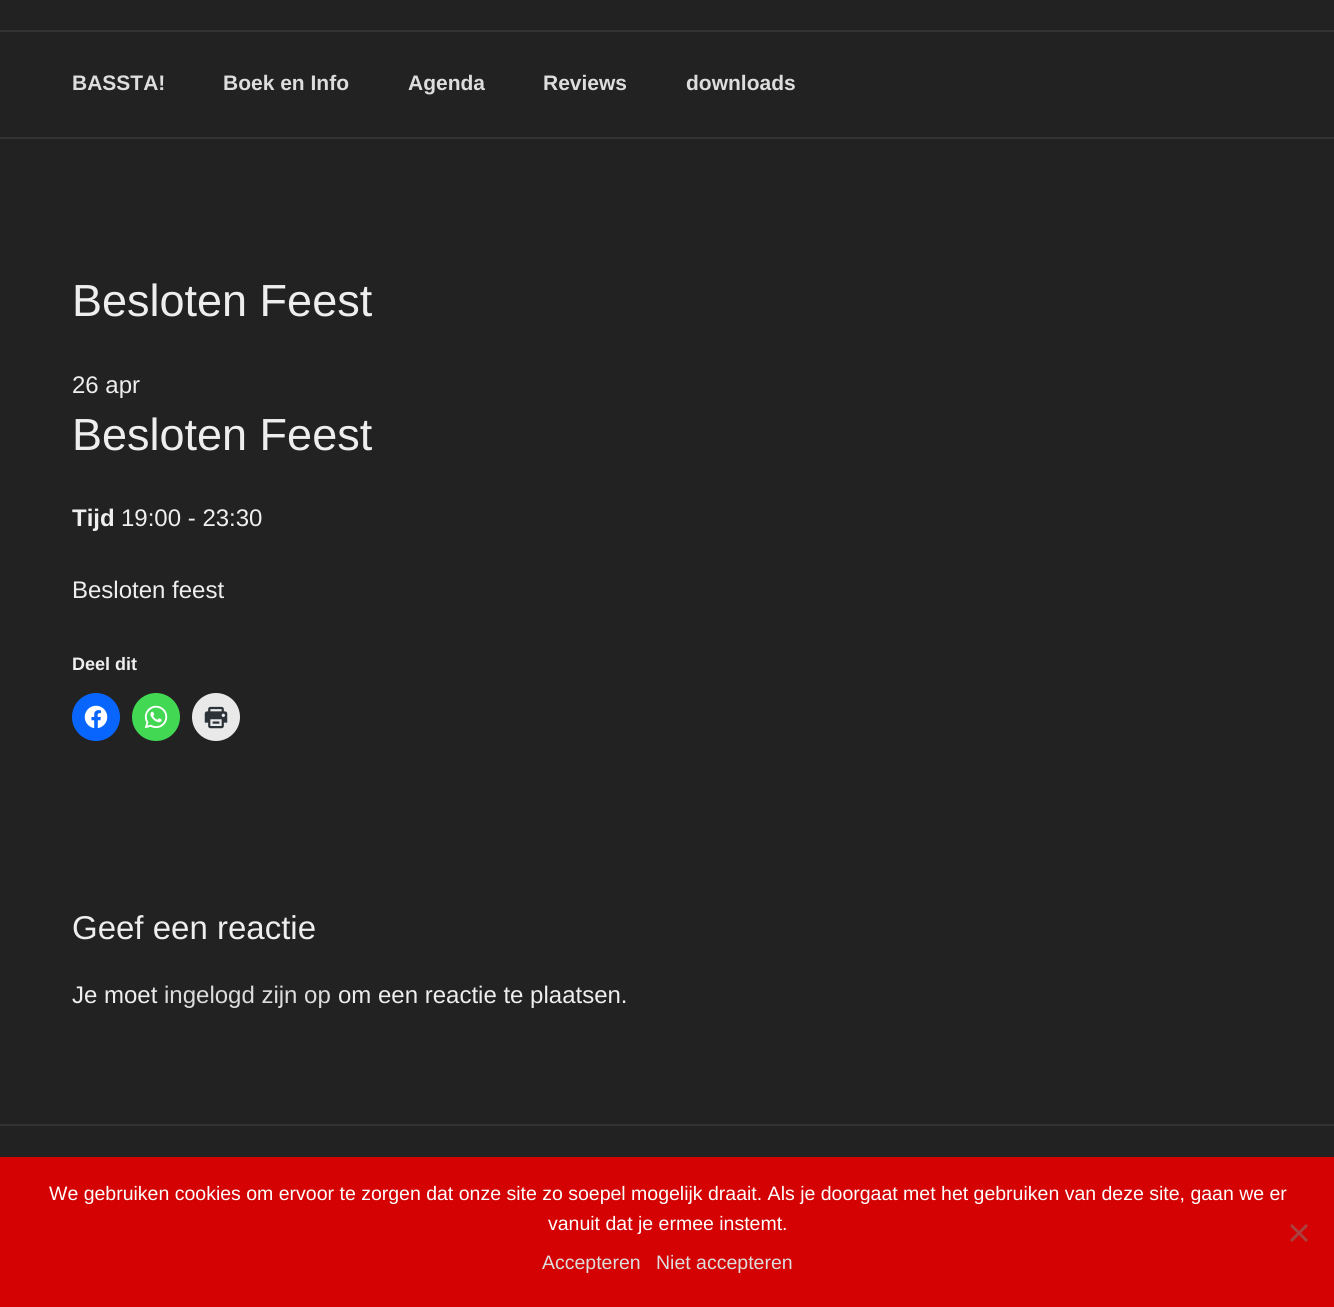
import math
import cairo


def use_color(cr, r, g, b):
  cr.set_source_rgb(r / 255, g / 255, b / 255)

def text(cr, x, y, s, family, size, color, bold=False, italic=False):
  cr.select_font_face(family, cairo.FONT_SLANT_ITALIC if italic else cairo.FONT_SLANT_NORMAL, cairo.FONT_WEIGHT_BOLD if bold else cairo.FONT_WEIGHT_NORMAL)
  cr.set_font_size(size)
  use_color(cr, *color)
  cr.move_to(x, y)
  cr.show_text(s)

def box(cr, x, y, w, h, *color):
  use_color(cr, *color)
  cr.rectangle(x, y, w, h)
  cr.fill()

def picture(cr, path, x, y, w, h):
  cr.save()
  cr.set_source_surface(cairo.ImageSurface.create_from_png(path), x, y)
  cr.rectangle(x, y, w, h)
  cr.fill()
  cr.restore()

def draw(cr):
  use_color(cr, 34, 34, 34)
  cr.paint()
  box(cr, 0, 1157, 1334, 150, 212, 2, 2)
  box(cr, 0, 30, 1334, 2, 51, 51, 51)
  box(cr, 0, 137, 1334, 2, 51, 51, 51)
  use_color(cr, 8, 102, 255)
  cr.arc(96, 717, 24, 0, 2 * math.pi)
  cr.fill()
  picture(cr, "img_01.png", 84, 705, 24, 23)
  use_color(cr, 67, 216, 84)
  cr.arc(156, 717, 24, 0, 2 * math.pi)
  cr.fill()
  picture(cr, "img_02.png", 144, 705, 24, 24)
  use_color(cr, 233, 233, 233)
  cr.arc(216, 717, 24, 0, 2 * math.pi)
  cr.fill()
  picture(cr, "img_03.png", 204, 706, 24, 23)
  box(cr, 0, 1124, 1334, 2, 51, 51, 51)
  use_color(cr, 170, 65, 65)
  cr.new_path()
  cr.move_to(1306, 1224)
  cr.line_to(1308, 1226)
  cr.line_to(1292, 1242)
  cr.line_to(1290, 1240)
  cr.close_path()
  cr.fill()
  cr.new_path()
  cr.move_to(1290, 1226)
  cr.line_to(1292, 1224)
  cr.line_to(1308, 1240)
  cr.line_to(1306, 1242)
  cr.close_path()
  cr.fill()
  text(cr, 72, 90, "BASSTA!", "Liberation Sans", 21, (221, 221, 221), bold=True)
  text(cr, 223, 90, "Boek en Info", "Liberation Sans", 21, (221, 221, 221), bold=True)
  text(cr, 408, 90, "Agenda", "Liberation Sans", 21, (221, 221, 221), bold=True)
  text(cr, 543, 90, "Reviews", "Liberation Sans", 21, (221, 221, 221), bold=True)
  text(cr, 686, 90, "downloads", "Liberation Sans", 21, (221, 221, 221), bold=True)
  text(cr, 72, 316, "Besloten Feest", "Liberation Sans", 45, (238, 238, 238))
  text(cr, 72, 393, "26 apr", "Liberation Sans", 24, (238, 238, 238))
  text(cr, 72, 450, "Besloten Feest", "Liberation Sans", 45, (238, 238, 238))
  text(cr, 72, 526, "Tijd", "Liberation Sans", 24, (238, 238, 238), bold=True)
  text(cr, 121, 526, "19:00 - 23:30", "Liberation Sans", 24, (238, 238, 238))
  text(cr, 72, 598, "Besloten feest", "Liberation Sans", 24, (238, 238, 238))
  text(cr, 72, 670, "Deel dit", "Liberation Sans", 18, (238, 238, 238), bold=True)
  text(cr, 72, 939, "Geef een reactie", "Liberation Sans", 33, (238, 238, 238))
  text(cr, 72, 1003, "Je moet", "Liberation Sans", 24, (238, 238, 238))
  text(cr, 164, 1003, "ingelogd zijn op", "Liberation Sans", 24, (221, 221, 221))
  text(cr, 338, 1003, "om een reactie te plaatsen.", "Liberation Sans", 24, (238, 238, 238))
  text(cr, 49, 1200, "We gebruiken cookies om ervoor te zorgen dat onze site zo soepel mogelijk draait. Als je doorgaat met het gebruiken van deze site, gaan we er", "Liberation Sans", 19.5, (255, 255, 255))
  text(cr, 548, 1230, "vanuit dat je ermee instemt.", "Liberation Sans", 19.5, (255, 255, 255))
  text(cr, 542, 1269, "Accepteren", "Liberation Sans", 19.5, (221, 221, 221))
  text(cr, 656, 1269, "Niet accepteren", "Liberation Sans", 19.5, (221, 221, 221))


surface = cairo.ImageSurface(cairo.FORMAT_RGB24, 1334, 1307)
cr = cairo.Context(surface)
options = cairo.FontOptions()
options.set_hint_metrics(cairo.HINT_METRICS_OFF)
options.set_hint_style(cairo.HINT_STYLE_NONE)
cr.set_font_options(options)
cr.set_miter_limit(4)
draw(cr)
surface.write_to_png("out.png")
